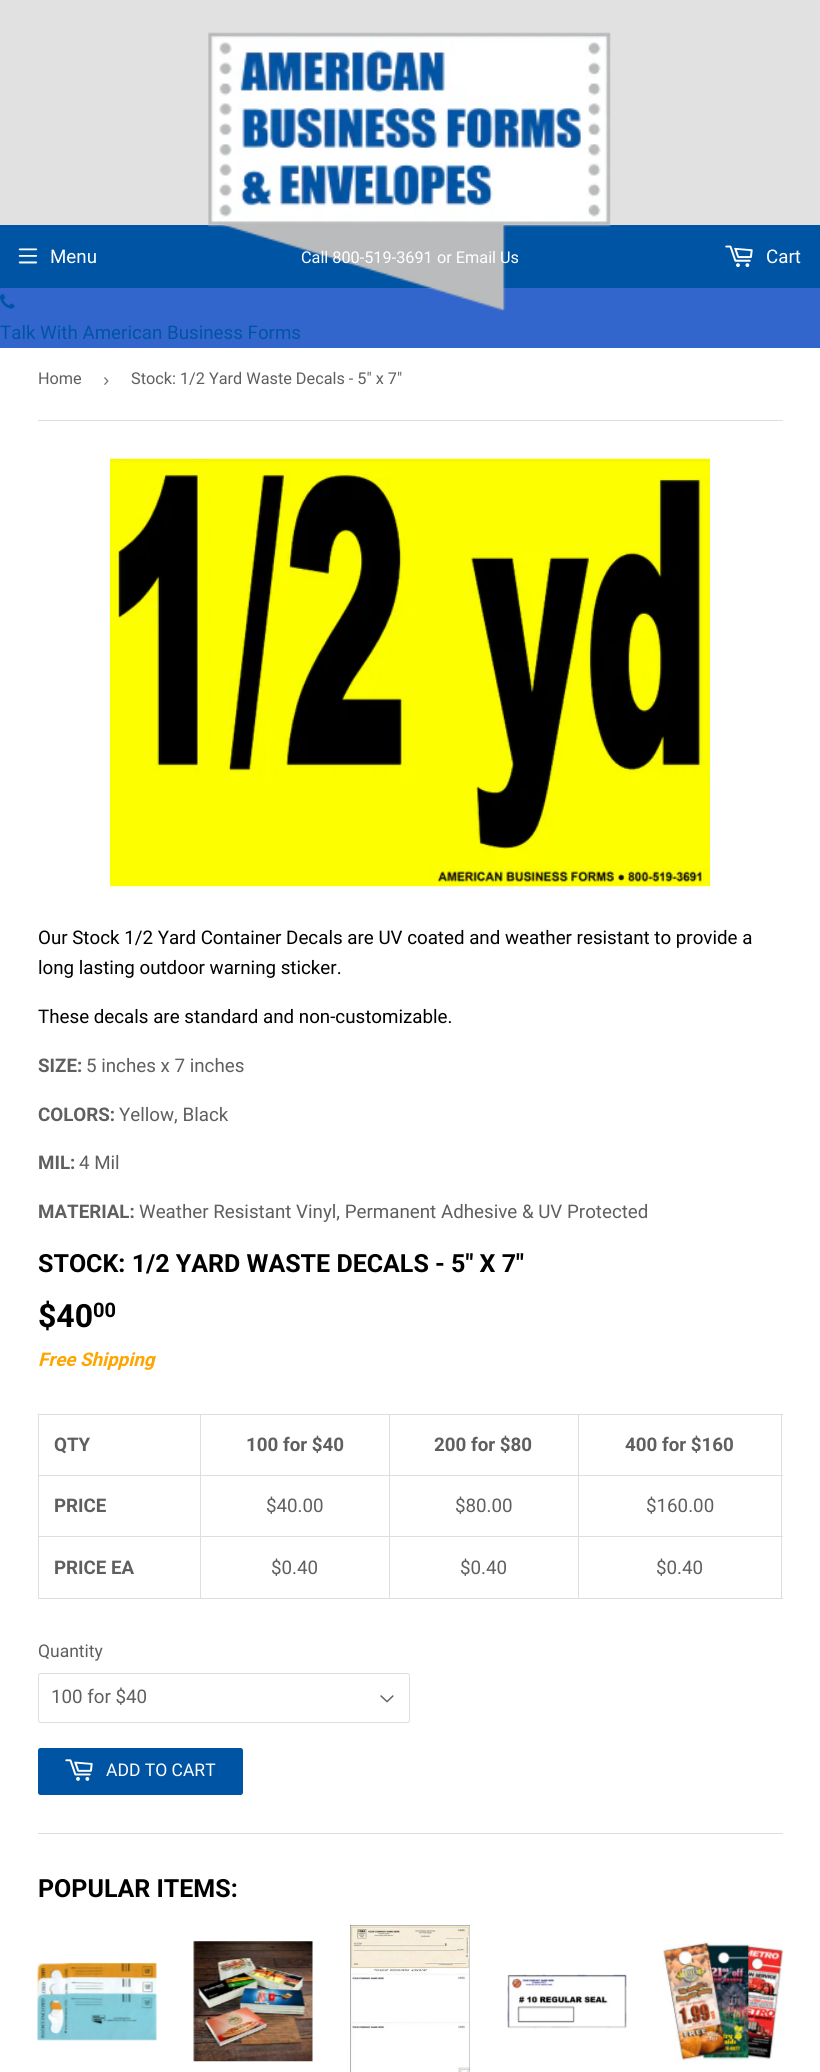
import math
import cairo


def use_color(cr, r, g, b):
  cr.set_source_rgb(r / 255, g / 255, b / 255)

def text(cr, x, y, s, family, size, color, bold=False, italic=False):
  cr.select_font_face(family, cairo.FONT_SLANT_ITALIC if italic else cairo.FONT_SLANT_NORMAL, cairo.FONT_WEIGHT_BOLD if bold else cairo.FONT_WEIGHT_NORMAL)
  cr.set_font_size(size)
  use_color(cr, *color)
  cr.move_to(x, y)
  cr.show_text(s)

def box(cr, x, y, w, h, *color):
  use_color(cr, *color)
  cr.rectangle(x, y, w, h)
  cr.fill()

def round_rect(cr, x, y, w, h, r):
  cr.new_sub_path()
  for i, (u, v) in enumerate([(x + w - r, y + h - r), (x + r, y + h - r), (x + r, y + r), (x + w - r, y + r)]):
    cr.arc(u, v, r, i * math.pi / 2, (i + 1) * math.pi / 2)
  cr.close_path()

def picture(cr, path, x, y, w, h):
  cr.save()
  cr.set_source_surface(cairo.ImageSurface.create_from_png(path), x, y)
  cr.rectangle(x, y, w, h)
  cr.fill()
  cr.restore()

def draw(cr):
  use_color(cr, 255, 255, 255)
  cr.paint()
  box(cr, 0, 0, 820, 225, 225, 225, 225)
  box(cr, 0, 225, 820, 63, 0, 84, 164)
  box(cr, 0, 288, 820, 60, 51, 102, 204)
  picture(cr, "img_01.png", 208, 32, 403, 279)
  picture(cr, "img_02.png", 18, 248, 20, 16)
  picture(cr, "img_03.png", 725, 245, 28, 23)
  picture(cr, "img_04.png", 0, 294, 15, 15)
  box(cr, 38, 420, 745, 1, 222, 222, 222)
  picture(cr, "img_05.png", 110, 458, 600, 429)
  box(cr, 578, 1414, 205, 1, 222, 222, 222)
  box(cr, 578, 1475, 205, 1, 222, 222, 222)
  box(cr, 578, 1536, 205, 1, 222, 222, 222)
  box(cr, 781, 1536, 1, 63, 222, 222, 222)
  box(cr, 578, 1598, 205, 1, 222, 222, 222)
  box(cr, 578, 1536, 1, 63, 222, 222, 222)
  box(cr, 389, 1536, 190, 1, 222, 222, 222)
  box(cr, 578, 1475, 1, 63, 222, 222, 222)
  box(cr, 389, 1475, 190, 1, 222, 222, 222)
  box(cr, 578, 1414, 1, 62, 222, 222, 222)
  box(cr, 389, 1414, 190, 1, 222, 222, 222)
  box(cr, 389, 1598, 190, 1, 222, 222, 222)
  box(cr, 389, 1536, 1, 63, 222, 222, 222)
  box(cr, 200, 1536, 190, 1, 222, 222, 222)
  box(cr, 389, 1475, 1, 63, 222, 222, 222)
  box(cr, 200, 1475, 190, 1, 222, 222, 222)
  box(cr, 389, 1414, 1, 62, 222, 222, 222)
  box(cr, 200, 1414, 190, 1, 222, 222, 222)
  box(cr, 200, 1598, 190, 1, 222, 222, 222)
  box(cr, 200, 1536, 1, 63, 222, 222, 222)
  box(cr, 38, 1536, 163, 1, 222, 222, 222)
  box(cr, 200, 1475, 1, 63, 222, 222, 222)
  box(cr, 38, 1475, 163, 1, 222, 222, 222)
  box(cr, 200, 1414, 1, 62, 222, 222, 222)
  box(cr, 38, 1414, 163, 1, 222, 222, 222)
  box(cr, 38, 1598, 163, 1, 222, 222, 222)
  box(cr, 38, 1536, 1, 63, 222, 222, 222)
  box(cr, 38, 1475, 1, 63, 222, 222, 222)
  box(cr, 38, 1414, 1, 62, 222, 222, 222)
  box(cr, 781, 1475, 1, 63, 222, 222, 222)
  box(cr, 781, 1414, 1, 62, 222, 222, 222)
  picture(cr, "img_06.png", 380, 1695, 14, 8)
  round_rect(cr, 38.5, 1673.5, 371, 49, 2)
  cr.set_line_width(1)
  cr.stroke()
  use_color(cr, 0, 84, 164)
  round_rect(cr, 38, 1748, 205, 47, 2.5)
  cr.fill()
  picture(cr, "img_07.png", 65, 1759, 28, 22)
  box(cr, 38, 1833, 745, 1, 222, 222, 222)
  picture(cr, "img_08.png", 37, 1962, 120, 79)
  picture(cr, "img_09.png", 193, 1941, 120, 121)
  picture(cr, "img_10.png", 350, 1925, 120, 147)
  picture(cr, "img_11.png", 507, 1974, 120, 55)
  picture(cr, "img_12.png", 663, 1941, 121, 120)
  text(cr, 50, 263, "Menu", "Roboto", 18.75, (255, 255, 255))
  text(cr, 301, 263, "Call 800-519-3691", "Roboto", 16.25, (255, 255, 255))
  text(cr, 437, 263, "or Email Us", "Roboto", 16.25, (255, 255, 255))
  text(cr, 766, 263, "Cart", "Roboto", 18.75, (255, 255, 255))
  text(cr, 0, 339, "Talk With American Business Forms", "Roboto", 18.75, (0, 84, 164))
  text(cr, 38, 384, "Home", "Roboto", 16.25, (95, 95, 95))
  text(cr, 103, 386, "›", "Liberation Sans", 18.75, (118, 118, 118))
  text(cr, 131, 384, "Stock: 1/2 Yard Waste Decals - 5\" x 7\"", "Roboto", 16.25, (95, 95, 95))
  text(cr, 38, 944, "Our Stock 1/2 Yard Container Decals are UV coated and weather resistant to provide a", "Roboto", 18.75, (0, 0, 0))
  text(cr, 38, 974, "long lasting outdoor warning sticker.", "Roboto", 18.75, (0, 0, 0))
  text(cr, 38, 1023, "These decals are standard and non-customizable.", "Roboto", 18.75, (0, 0, 0))
  text(cr, 38, 1072, "SIZE:", "Roboto", 18.75, (95, 95, 95), bold=True)
  text(cr, 86, 1072, "5 inches x 7 inches", "Roboto", 18.75, (95, 95, 95))
  text(cr, 38, 1121, "COLORS:", "Roboto", 18.75, (95, 95, 95), bold=True)
  text(cr, 119, 1121, "Yellow, Black", "Roboto", 18.75, (95, 95, 95))
  text(cr, 38, 1169, "MIL:", "Roboto", 18.75, (95, 95, 95), bold=True)
  text(cr, 79, 1169, "4 Mil", "Roboto", 18.75, (95, 95, 95))
  text(cr, 38, 1218, "MATERIAL:", "Roboto", 18.75, (95, 95, 95), bold=True)
  text(cr, 139, 1218, "Weather Resistant Vinyl, Permanent Adhesive & UV Protected", "Roboto", 18.75, (95, 95, 95))
  text(cr, 38, 1272, "STOCK: 1/2 YARD WASTE DECALS - 5\" X 7\"", "Roboto", 25, (0, 0, 0), bold=True)
  text(cr, 38, 1327, "$40", "Roboto", 32, (0, 0, 0), bold=True)
  text(cr, 93, 1317, "00", "Roboto", 20, (0, 0, 0), bold=True)
  text(cr, 38, 1366, "Free Shipping", "Roboto", 18.75, (255, 165, 0), bold=True, italic=True)
  text(cr, 54, 1451, "QTY", "Roboto", 18.75, (95, 95, 95), bold=True)
  text(cr, 246, 1451, "100 for $40", "Roboto", 18.75, (95, 95, 95), bold=True)
  text(cr, 434, 1451, "200 for $80", "Roboto", 18.75, (95, 95, 95), bold=True)
  text(cr, 625, 1451, "400 for $160", "Roboto", 18.75, (95, 95, 95), bold=True)
  text(cr, 54, 1512, "PRICE", "Roboto", 18.75, (95, 95, 95), bold=True)
  text(cr, 266, 1512, "$40.00", "Roboto", 18.75, (95, 95, 95))
  text(cr, 455, 1512, "$80.00", "Roboto", 18.75, (95, 95, 95))
  text(cr, 646, 1512, "$160.00", "Roboto", 18.75, (95, 95, 95))
  text(cr, 54, 1574, "PRICE EA", "Roboto", 18.75, (95, 95, 95), bold=True)
  text(cr, 271, 1574, "$0.40", "Roboto", 18.75, (95, 95, 95))
  text(cr, 460, 1574, "$0.40", "Roboto", 18.75, (95, 95, 95))
  text(cr, 656, 1574, "$0.40", "Roboto", 18.75, (95, 95, 95))
  text(cr, 38, 1657, "Quantity", "Roboto", 17.5, (95, 95, 95))
  text(cr, 51, 1703, "100 for $40", "Roboto", 18.75, (95, 95, 95))
  text(cr, 106, 1776, "ADD TO CART", "Roboto", 17.5, (255, 255, 255))
  text(cr, 38, 1897, "POPULAR ITEMS:", "Roboto", 25, (0, 0, 0), bold=True)


surface = cairo.ImageSurface(cairo.FORMAT_RGB24, 820, 2072)
cr = cairo.Context(surface)
options = cairo.FontOptions()
options.set_hint_metrics(cairo.HINT_METRICS_OFF)
options.set_hint_style(cairo.HINT_STYLE_NONE)
cr.set_font_options(options)
cr.set_miter_limit(4)
draw(cr)
surface.write_to_png("out.png")
